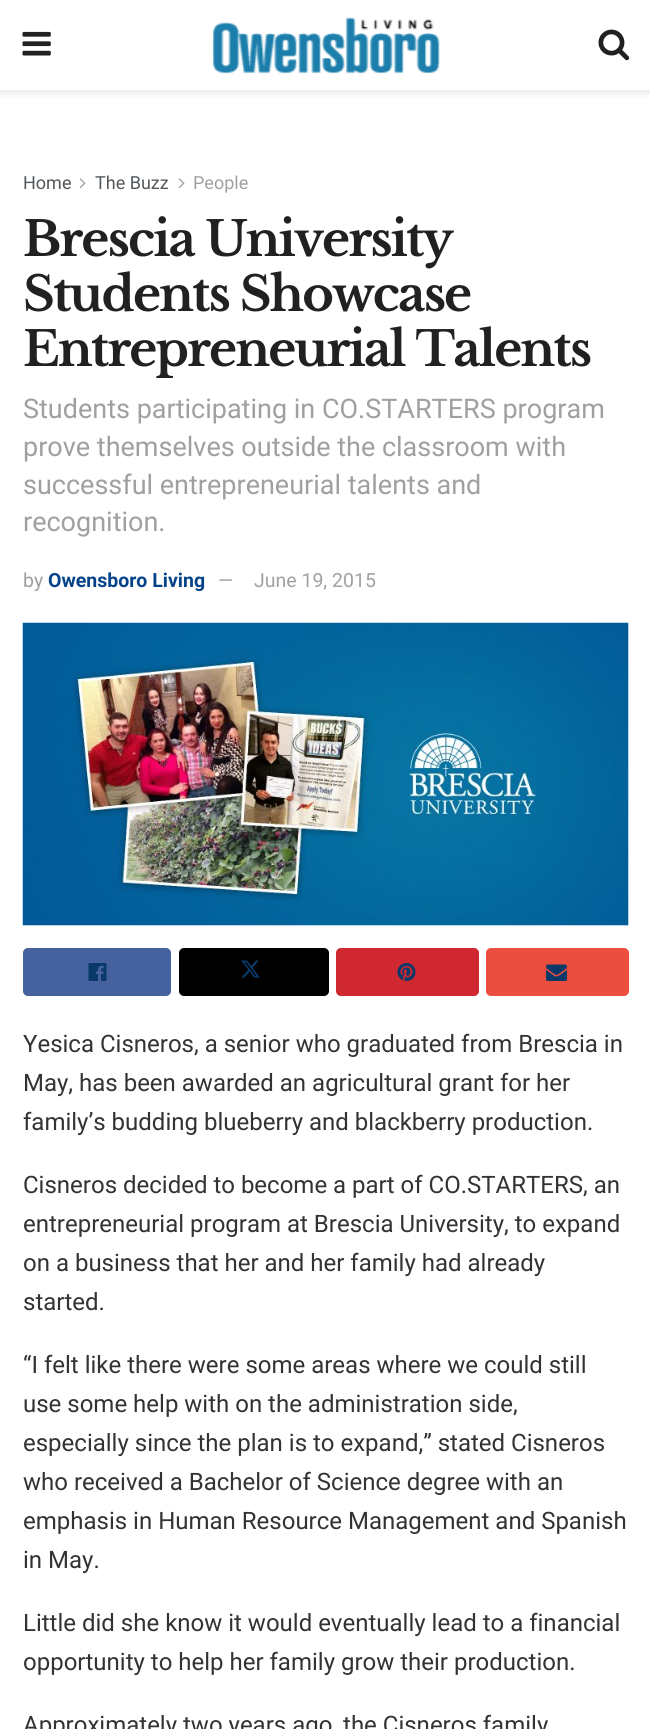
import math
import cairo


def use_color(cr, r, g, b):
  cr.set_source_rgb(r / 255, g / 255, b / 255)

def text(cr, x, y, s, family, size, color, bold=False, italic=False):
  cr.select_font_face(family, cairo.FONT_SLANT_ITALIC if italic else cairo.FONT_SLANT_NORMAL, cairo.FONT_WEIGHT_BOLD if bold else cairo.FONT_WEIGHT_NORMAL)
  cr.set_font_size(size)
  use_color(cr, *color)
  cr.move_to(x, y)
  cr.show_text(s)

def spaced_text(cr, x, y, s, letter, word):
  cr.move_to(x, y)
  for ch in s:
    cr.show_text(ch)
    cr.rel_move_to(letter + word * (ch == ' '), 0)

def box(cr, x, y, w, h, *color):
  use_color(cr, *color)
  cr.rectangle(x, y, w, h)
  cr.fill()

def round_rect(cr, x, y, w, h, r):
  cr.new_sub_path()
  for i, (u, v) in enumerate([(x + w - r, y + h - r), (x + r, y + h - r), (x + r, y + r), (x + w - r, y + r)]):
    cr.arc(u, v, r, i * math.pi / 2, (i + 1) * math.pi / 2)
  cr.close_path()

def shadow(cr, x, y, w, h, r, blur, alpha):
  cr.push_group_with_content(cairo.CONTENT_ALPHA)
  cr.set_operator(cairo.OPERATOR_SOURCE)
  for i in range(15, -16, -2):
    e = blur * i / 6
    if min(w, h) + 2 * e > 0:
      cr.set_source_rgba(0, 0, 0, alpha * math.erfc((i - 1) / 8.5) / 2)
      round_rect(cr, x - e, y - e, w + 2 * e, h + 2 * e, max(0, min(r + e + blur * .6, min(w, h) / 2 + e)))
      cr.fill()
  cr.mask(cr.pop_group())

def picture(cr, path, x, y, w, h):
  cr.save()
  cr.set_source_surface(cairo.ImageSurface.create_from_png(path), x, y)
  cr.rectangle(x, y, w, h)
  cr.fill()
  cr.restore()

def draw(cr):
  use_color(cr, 255, 255, 255)
  cr.paint()
  cr.save()
  cr.rectangle(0, 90, 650, 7)
  cr.clip()
  use_color(cr, 0, 0, 0)
  shadow(cr, 0, 3, 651, 90, 0, 4.5, 0.1)
  cr.restore()
  picture(cr, "img_01.png", 22, 31, 29, 25)
  picture(cr, "img_02.png", 212, 17, 228, 57)
  picture(cr, "img_03.png", 598, 29, 32, 32)
  picture(cr, "img_04.png", 79, 178, 7, 11)
  picture(cr, "img_04.png", 178, 178, 7, 11)
  box(cr, 23, 623, 606, 303, 247, 247, 247)
  picture(cr, "img_05.png", 22, 622, 607, 304)
  use_color(cr, 69, 98, 159)
  round_rect(cr, 23, 948, 148, 48, 5)
  cr.fill()
  picture(cr, "img_06.png", 88, 963, 19, 18)
  use_color(cr, 0, 0, 0)
  round_rect(cr, 179, 948, 150, 48, 5)
  cr.fill()
  picture(cr, "img_07.png", 241, 960, 19, 18)
  use_color(cr, 207, 40, 48)
  round_rect(cr, 336, 948, 143, 48, 5)
  cr.fill()
  picture(cr, "img_08.png", 397, 963, 19, 18)
  use_color(cr, 235, 77, 63)
  round_rect(cr, 486, 948, 143, 48, 5)
  cr.fill()
  picture(cr, "img_09.png", 546, 964, 21, 17)
  text(cr, 23, 189, "Home", "Roboto", 18, (83, 88, 92))
  text(cr, 95, 189, "The Buzz", "Roboto", 18, (83, 88, 92))
  text(cr, 193, 189, "People", "Roboto", 18, (160, 160, 160))
  cr.select_font_face("Libre Baskerville", cairo.FONT_SLANT_NORMAL, cairo.FONT_WEIGHT_BOLD)
  cr.set_font_size(48)
  use_color(cr, 33, 33, 33)
  spaced_text(cr, 23, 256, "Brescia University", -1.9, 0)
  spaced_text(cr, 23, 311, "Students Showcase", -1.9, 0)
  spaced_text(cr, 23, 366, "Entrepreneurial Talents", -1.9, 0)
  text(cr, 23, 418, "Students participating in CO.STARTERS program", "Roboto", 27, (160, 160, 160))
  text(cr, 23, 456, "prove themselves outside the classroom with", "Roboto", 27, (160, 160, 160))
  text(cr, 23, 494, "successful entrepreneurial talents and", "Roboto", 27, (160, 160, 160))
  text(cr, 23, 531, "recognition.", "Roboto", 27, (160, 160, 160))
  text(cr, 23, 587, "by", "Roboto", 19.5, (160, 160, 160))
  text(cr, 48, 587, "Owensboro Living", "Roboto", 19.5, (4, 67, 137), bold=True)
  text(cr, 218, 587, "—", "Roboto", 19.5, (160, 160, 160))
  text(cr, 254, 587, "June 19, 2015", "Roboto", 19.5, (160, 160, 160))
  text(cr, 23, 1052, "Yesica Cisneros, a senior who graduated from Brescia in", "Roboto", 24, (51, 51, 51))
  text(cr, 23, 1091, "May, has been awarded an agricultural grant for her", "Roboto", 24, (51, 51, 51))
  text(cr, 23, 1130, "family’s budding blueberry and blackberry production.", "Roboto", 24, (51, 51, 51))
  text(cr, 23, 1193, "Cisneros decided to become a part of CO.STARTERS, an", "Roboto", 24, (51, 51, 51))
  text(cr, 23, 1232, "entrepreneurial program at Brescia University, to expand", "Roboto", 24, (51, 51, 51))
  text(cr, 23, 1271, "on a business that her and her family had already", "Roboto", 24, (51, 51, 51))
  text(cr, 23, 1310, "started.", "Roboto", 24, (51, 51, 51))
  text(cr, 23, 1373, "“I felt like there were some areas where we could still", "Roboto", 24, (51, 51, 51))
  text(cr, 23, 1412, "use some help with on the administration side,", "Roboto", 24, (51, 51, 51))
  text(cr, 23, 1451, "especially since the plan is to expand,” stated Cisneros", "Roboto", 24, (51, 51, 51))
  text(cr, 23, 1490, "who received a Bachelor of Science degree with an", "Roboto", 24, (51, 51, 51))
  text(cr, 23, 1529, "emphasis in Human Resource Management and Spanish", "Roboto", 24, (51, 51, 51))
  text(cr, 23, 1568, "in May.", "Roboto", 24, (51, 51, 51))
  text(cr, 23, 1631, "Little did she know it would eventually lead to a financial", "Roboto", 24, (51, 51, 51))
  text(cr, 23, 1670, "opportunity to help her family grow their production.", "Roboto", 24, (51, 51, 51))
  text(cr, 23, 1733, "Approximately two years ago, the Cisneros family", "Roboto", 24, (51, 51, 51))


surface = cairo.ImageSurface(cairo.FORMAT_RGB24, 650, 1729)
cr = cairo.Context(surface)
options = cairo.FontOptions()
options.set_hint_metrics(cairo.HINT_METRICS_OFF)
options.set_hint_style(cairo.HINT_STYLE_NONE)
cr.set_font_options(options)
cr.set_miter_limit(4)
draw(cr)
surface.write_to_png("out.png")
